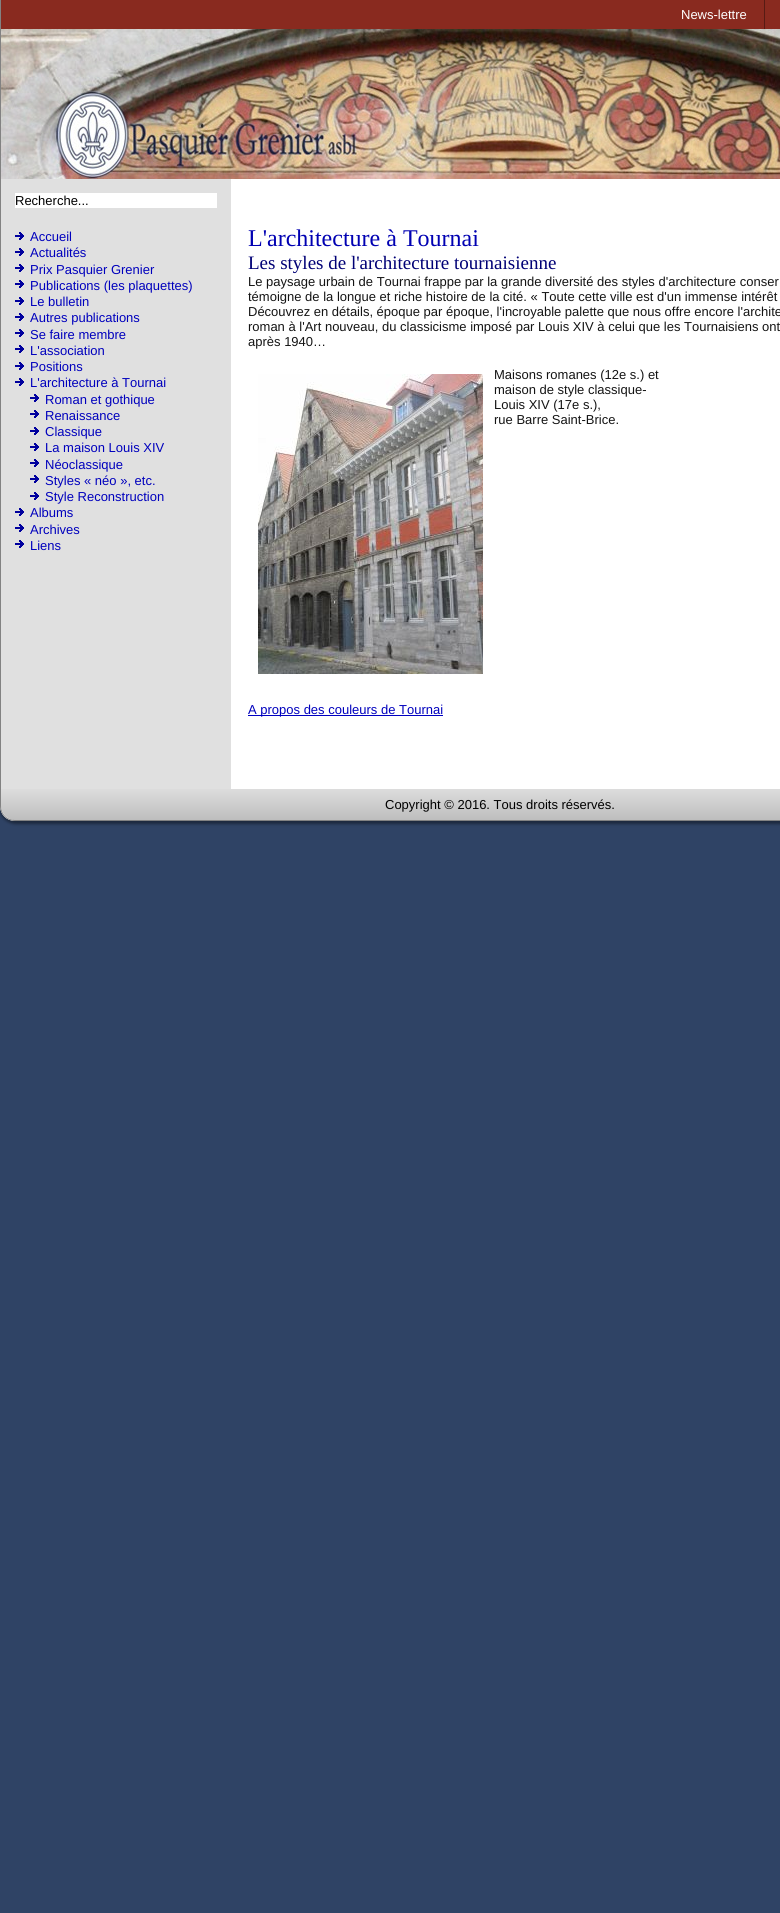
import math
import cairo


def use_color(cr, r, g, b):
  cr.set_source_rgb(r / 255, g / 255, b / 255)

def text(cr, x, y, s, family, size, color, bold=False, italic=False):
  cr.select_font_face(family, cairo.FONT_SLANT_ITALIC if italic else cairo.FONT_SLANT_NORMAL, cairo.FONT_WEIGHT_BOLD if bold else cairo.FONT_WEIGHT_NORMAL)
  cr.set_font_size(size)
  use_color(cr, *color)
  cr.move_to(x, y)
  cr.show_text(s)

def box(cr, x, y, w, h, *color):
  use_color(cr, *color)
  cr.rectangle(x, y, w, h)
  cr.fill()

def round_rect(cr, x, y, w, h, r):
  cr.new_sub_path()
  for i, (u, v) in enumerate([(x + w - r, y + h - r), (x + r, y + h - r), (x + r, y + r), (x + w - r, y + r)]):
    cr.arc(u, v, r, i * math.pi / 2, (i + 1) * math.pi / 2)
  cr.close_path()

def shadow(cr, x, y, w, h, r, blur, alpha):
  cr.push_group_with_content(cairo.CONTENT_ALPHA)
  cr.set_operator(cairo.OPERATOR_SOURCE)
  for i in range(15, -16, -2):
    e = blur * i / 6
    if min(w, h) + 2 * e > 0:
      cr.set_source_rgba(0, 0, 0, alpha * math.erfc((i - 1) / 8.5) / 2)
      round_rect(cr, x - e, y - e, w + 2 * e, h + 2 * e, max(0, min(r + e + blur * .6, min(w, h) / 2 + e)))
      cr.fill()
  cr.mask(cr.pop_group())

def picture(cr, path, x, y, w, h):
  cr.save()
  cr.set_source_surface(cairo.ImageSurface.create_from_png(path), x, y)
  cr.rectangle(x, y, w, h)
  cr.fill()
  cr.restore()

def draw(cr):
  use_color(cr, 47, 67, 101)
  cr.paint()
  use_color(cr, 0, 0, 0)
  shadow(cr, -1, -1, 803, 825, 17, 1.5, 0.4)
  use_color(cr, 255, 255, 255)
  cr.new_path()
  cr.move_to(0, 0)
  cr.line_to(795, 0)
  cr.line_to(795, 806)
  cr.curve_to(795, 814.5, 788.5, 821, 780, 821)
  cr.line_to(15, 821)
  cr.curve_to(6.5, 821, 0, 814.5, 0, 806)
  cr.close_path()
  cr.fill()
  use_color(cr, 130, 130, 130)
  cr.set_fill_rule(cairo.FILL_RULE_EVEN_ODD)
  cr.new_path()
  cr.move_to(0, 0)
  cr.line_to(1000, 0)
  cr.line_to(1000, 806)
  cr.curve_to(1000, 814, 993, 821, 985, 821)
  cr.line_to(15, 821)
  cr.curve_to(7, 821, 0, 814, 0, 806)
  cr.close_path()
  cr.move_to(1, 0)
  cr.line_to(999, 0)
  cr.line_to(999, 806)
  cr.curve_to(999, 814, 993, 820, 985, 820)
  cr.line_to(15, 820)
  cr.curve_to(7, 820, 1, 814, 1, 806)
  cr.close_path()
  cr.fill()
  box(cr, 1, 0, 779, 29, 137, 42, 31)
  box(cr, 764, 0, 1, 29, 87, 27, 20)
  picture(cr, "img_01.png", 1, 29, 779, 150)
  box(cr, 1, 179, 230, 610, 224, 224, 224)
  box(cr, 15, 193, 202, 15, 255, 255, 255)
  picture(cr, "img_02.png", 15, 232, 9, 8)
  picture(cr, "img_02.png", 15, 248, 9, 8)
  picture(cr, "img_02.png", 15, 264, 9, 8)
  picture(cr, "img_02.png", 15, 280, 9, 8)
  picture(cr, "img_02.png", 15, 297, 9, 8)
  picture(cr, "img_02.png", 15, 313, 9, 8)
  picture(cr, "img_02.png", 15, 329, 9, 8)
  picture(cr, "img_02.png", 15, 345, 9, 8)
  picture(cr, "img_02.png", 15, 362, 9, 8)
  picture(cr, "img_02.png", 15, 378, 9, 8)
  picture(cr, "img_02.png", 30, 394, 9, 8)
  picture(cr, "img_02.png", 30, 410, 9, 8)
  picture(cr, "img_02.png", 30, 427, 9, 8)
  picture(cr, "img_02.png", 30, 443, 9, 8)
  picture(cr, "img_02.png", 30, 459, 9, 8)
  picture(cr, "img_02.png", 30, 475, 9, 8)
  picture(cr, "img_02.png", 30, 492, 9, 8)
  picture(cr, "img_02.png", 15, 508, 9, 8)
  picture(cr, "img_02.png", 15, 524, 9, 8)
  picture(cr, "img_02.png", 15, 540, 9, 8)
  picture(cr, "img_03.png", 258, 374, 225, 300)
  box(cr, 248, 715, 195, 1, 0, 0, 194)
  gradient = cairo.LinearGradient(500, 789, 500, 820)
  gradient.add_color_stop_rgba(0, 0.659, 0.659, 0.659, 0.4)
  gradient.add_color_stop_rgba(0.53, 0.502, 0.502, 0.502, 0.4)
  gradient.add_color_stop_rgba(1, 0.361, 0.361, 0.361, 0.4)
  cr.set_source(gradient)
  cr.new_path()
  cr.move_to(1, 789)
  cr.line_to(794, 789)
  cr.line_to(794, 806)
  cr.curve_to(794, 813.5, 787.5, 820, 780, 820)
  cr.line_to(15, 820)
  cr.curve_to(7.5, 820, 1, 813.5, 1, 806)
  cr.close_path()
  cr.fill()
  text(cr, 681, 19, "News-lettre", "Liberation Sans", 13, (255, 255, 255))
  text(cr, 15, 205, "Recherche...", "Liberation Sans", 13, (0, 0, 0))
  text(cr, 30, 241, "Accueil", "Liberation Sans", 13, (0, 0, 189))
  text(cr, 30, 257, "Actualités", "Liberation Sans", 13, (0, 0, 189))
  text(cr, 30, 274, "Prix Pasquier Grenier", "Liberation Sans", 13, (0, 0, 189))
  text(cr, 30, 290, "Publications (les plaquettes)", "Liberation Sans", 13, (0, 0, 189))
  text(cr, 30, 306, "Le bulletin", "Liberation Sans", 13, (0, 0, 189))
  text(cr, 30, 322, "Autres publications", "Liberation Sans", 13, (0, 0, 189))
  text(cr, 30, 339, "Se faire membre", "Liberation Sans", 13, (0, 0, 189))
  text(cr, 30, 355, "L'association", "Liberation Sans", 13, (0, 0, 189))
  text(cr, 30, 371, "Positions", "Liberation Sans", 13, (0, 0, 189))
  text(cr, 30, 387, "L'architecture à Tournai", "Liberation Sans", 13, (0, 0, 189))
  text(cr, 45, 404, "Roman et gothique", "Liberation Sans", 13, (0, 0, 189))
  text(cr, 45, 420, "Renaissance", "Liberation Sans", 13, (0, 0, 189))
  text(cr, 45, 436, "Classique", "Liberation Sans", 13, (0, 0, 189))
  text(cr, 45, 452, "La maison Louis XIV", "Liberation Sans", 13, (0, 0, 189))
  text(cr, 45, 469, "Néoclassique", "Liberation Sans", 13, (0, 0, 189))
  text(cr, 45, 485, "Styles « néo », etc.", "Liberation Sans", 13, (0, 0, 189))
  text(cr, 45, 501, "Style Reconstruction", "Liberation Sans", 13, (0, 0, 189))
  text(cr, 30, 517, "Albums", "Liberation Sans", 13, (0, 0, 189))
  text(cr, 30, 534, "Archives", "Liberation Sans", 13, (0, 0, 189))
  text(cr, 30, 550, "Liens", "Liberation Sans", 13, (0, 0, 189))
  text(cr, 248, 246, "L'architecture à Tournai", "Liberation Serif", 24, (0, 0, 178))
  text(cr, 248, 269, "Les styles de l'architecture tournaisienne", "Liberation Serif", 19, (0, 0, 117))
  text(cr, 248, 286, "Le paysage urbain de Tournai frappe par la grande diversité des styles d'architecture conser", "Liberation Sans", 13, (20, 20, 20))
  text(cr, 248, 301, "témoigne de la longue et riche histoire de la cité. « Toute cette ville est d'un immense intérêt", "Liberation Sans", 13, (20, 20, 20))
  text(cr, 248, 316, "Découvrez en détails, époque par époque, l'incroyable palette que nous offre encore l'archite", "Liberation Sans", 13, (20, 20, 20))
  text(cr, 248, 331, "roman à l'Art nouveau, du classicisme imposé par Louis XIV à celui que les Tournaisiens ont", "Liberation Sans", 13, (20, 20, 20))
  text(cr, 248, 346, "après 1940…", "Liberation Sans", 13, (20, 20, 20))
  text(cr, 494, 379, "Maisons romanes (12e s.) et", "Liberation Sans", 13, (20, 20, 20))
  text(cr, 494, 394, "maison de style classique-", "Liberation Sans", 13, (20, 20, 20))
  text(cr, 494, 409, "Louis XIV (17e s.),", "Liberation Sans", 13, (20, 20, 20))
  text(cr, 494, 424, "rue Barre Saint-Brice.", "Liberation Sans", 13, (20, 20, 20))
  text(cr, 248, 714, "A propos des couleurs de Tournai", "Liberation Sans", 13, (0, 0, 189))
  text(cr, 385, 809, "Copyright © 2016. Tous droits réservés.", "Liberation Sans", 13, (0, 0, 0))


surface = cairo.ImageSurface(cairo.FORMAT_RGB24, 780, 1913)
cr = cairo.Context(surface)
options = cairo.FontOptions()
options.set_hint_metrics(cairo.HINT_METRICS_OFF)
options.set_hint_style(cairo.HINT_STYLE_NONE)
cr.set_font_options(options)
cr.set_miter_limit(4)
draw(cr)
surface.write_to_png("out.png")
